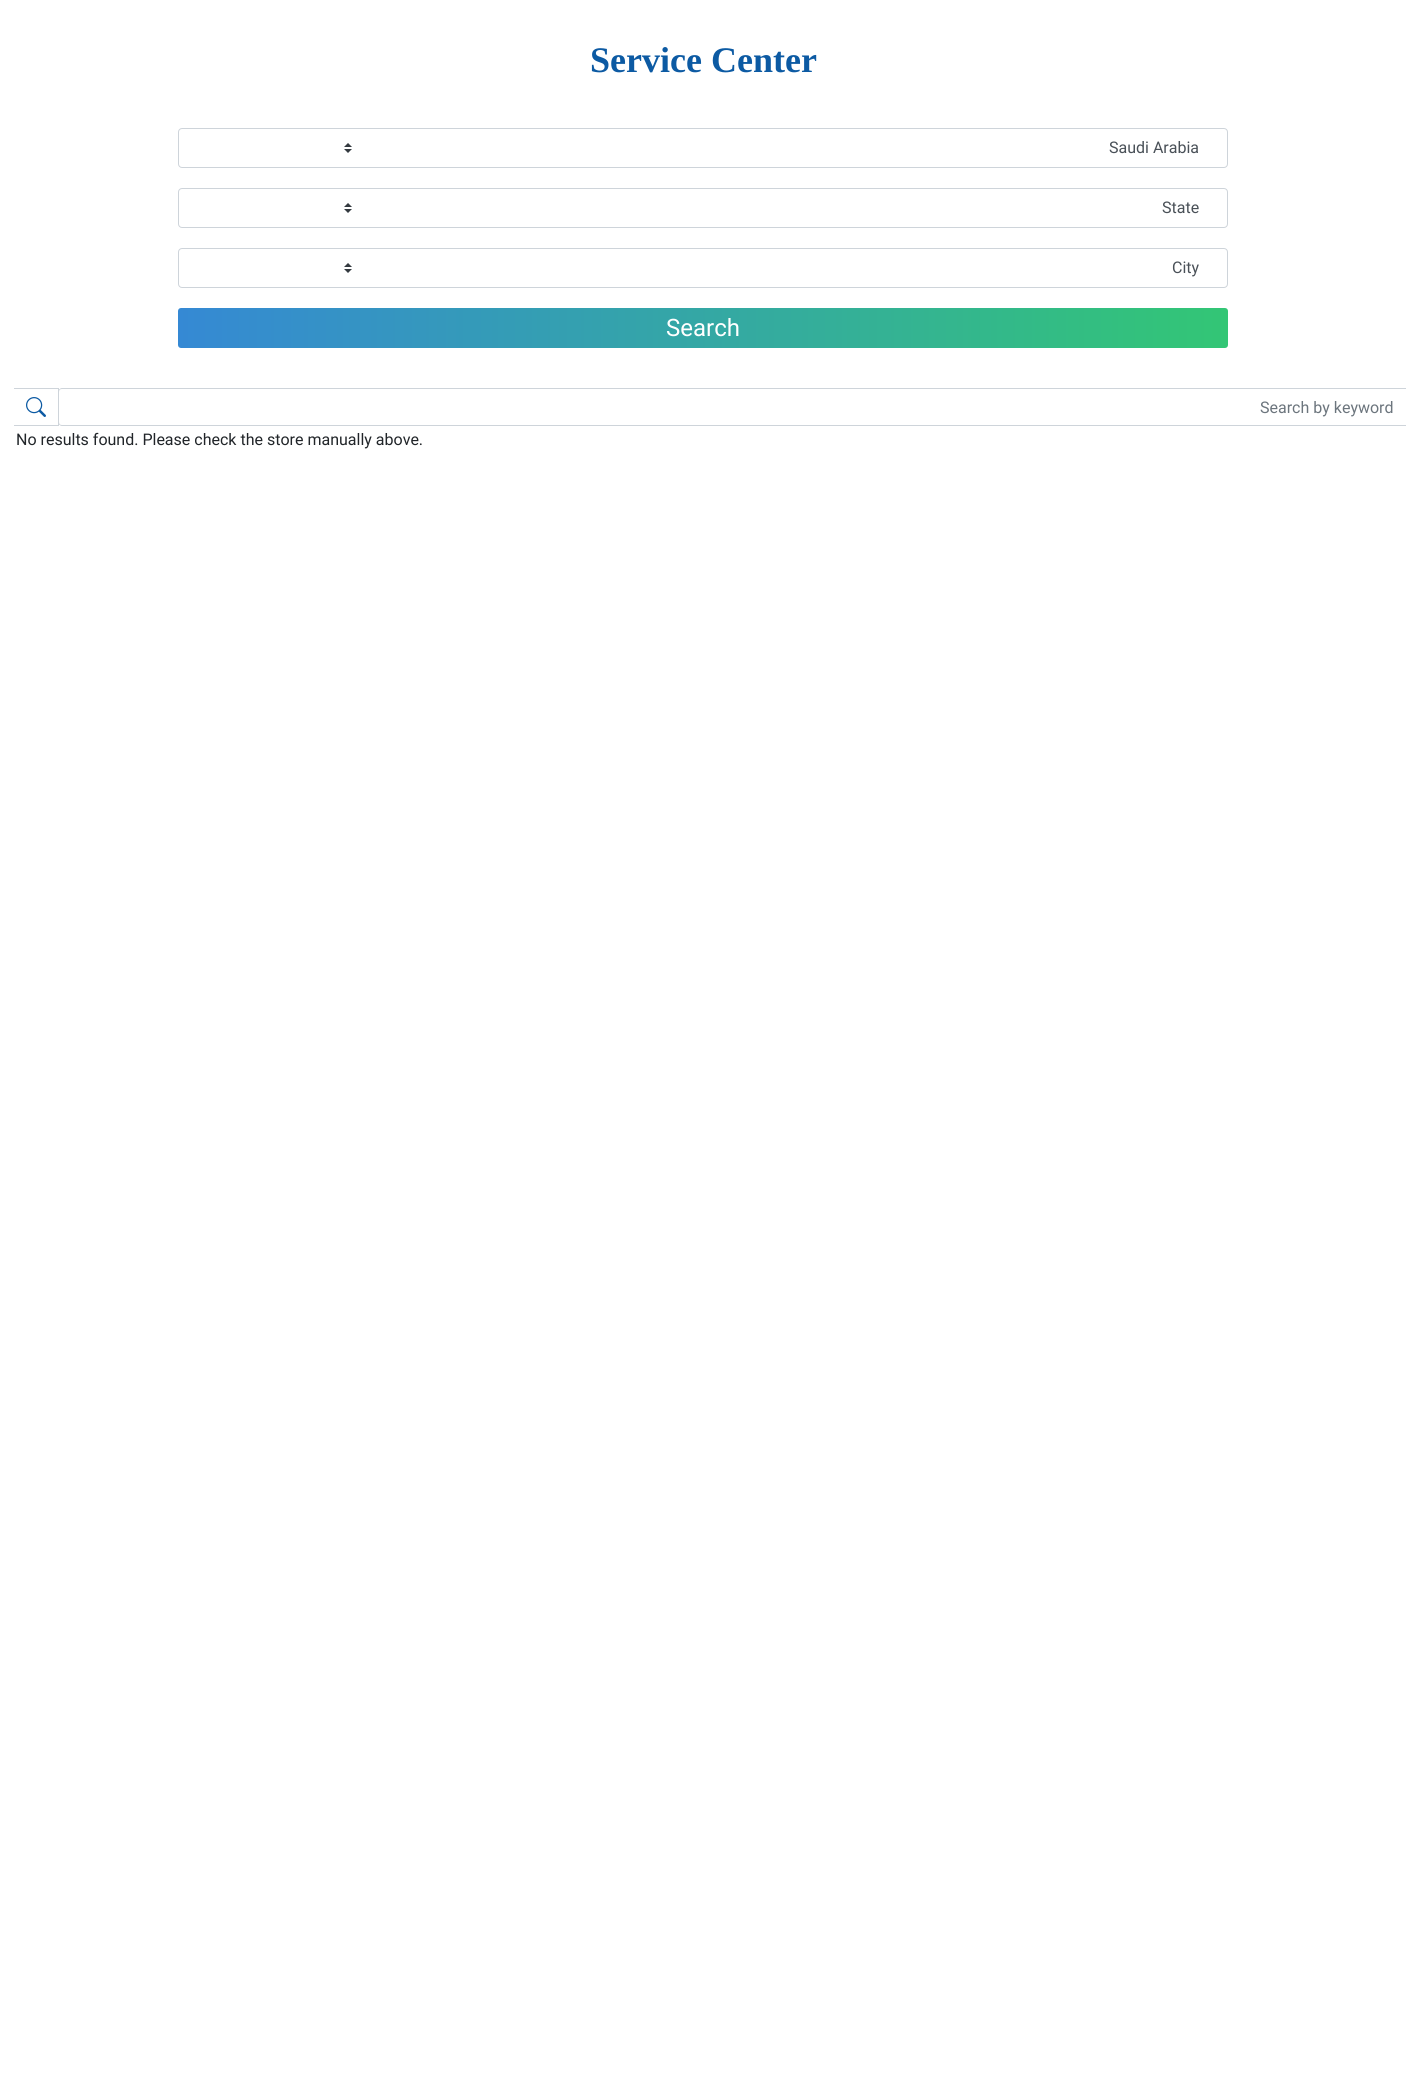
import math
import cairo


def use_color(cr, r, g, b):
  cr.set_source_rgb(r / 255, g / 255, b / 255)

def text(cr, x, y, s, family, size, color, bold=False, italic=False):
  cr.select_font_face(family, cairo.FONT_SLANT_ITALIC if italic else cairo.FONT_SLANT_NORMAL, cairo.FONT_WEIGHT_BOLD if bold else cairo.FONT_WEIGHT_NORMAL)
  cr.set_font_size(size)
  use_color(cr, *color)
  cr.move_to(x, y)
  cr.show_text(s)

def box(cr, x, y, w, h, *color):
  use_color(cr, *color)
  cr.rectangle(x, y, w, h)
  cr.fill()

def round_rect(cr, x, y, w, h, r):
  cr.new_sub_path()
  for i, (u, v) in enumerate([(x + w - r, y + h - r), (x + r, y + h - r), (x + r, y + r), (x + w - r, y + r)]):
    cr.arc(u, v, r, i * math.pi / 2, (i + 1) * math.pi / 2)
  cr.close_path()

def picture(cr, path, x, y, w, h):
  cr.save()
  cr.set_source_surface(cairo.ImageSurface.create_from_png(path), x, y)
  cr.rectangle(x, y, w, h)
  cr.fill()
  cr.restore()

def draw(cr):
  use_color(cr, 255, 255, 255)
  cr.paint()
  picture(cr, "img_01.png", 344, 143, 8, 10)
  round_rect(cr, 178.5, 128.5, 1049, 39, 3.5)
  use_color(cr, 206, 212, 218)
  cr.set_line_width(1)
  cr.stroke()
  picture(cr, "img_01.png", 344, 203, 8, 10)
  round_rect(cr, 178.5, 188.5, 1049, 39, 3.5)
  cr.stroke()
  picture(cr, "img_01.png", 344, 263, 8, 10)
  round_rect(cr, 178.5, 248.5, 1049, 39, 3.5)
  cr.stroke()
  gradient = cairo.LinearGradient(178, 328, 1228, 328)
  gradient.add_color_stop_rgba(0, 0.208, 0.537, 0.831, 1)
  gradient.add_color_stop_rgba(1, 0.2, 0.776, 0.459, 1)
  cr.set_source(gradient)
  round_rect(cr, 178, 308, 1050, 40, 3)
  cr.fill()
  use_color(cr, 206, 212, 218)
  cr.set_fill_rule(cairo.FILL_RULE_EVEN_ODD)
  cr.new_path()
  cr.move_to(62, 388)
  cr.line_to(1406, 388)
  cr.line_to(1406, 426)
  cr.line_to(62, 426)
  cr.curve_to(60, 426, 58, 424, 58, 422)
  cr.line_to(58, 392)
  cr.curve_to(58, 390, 60, 388, 62, 388)
  cr.close_path()
  cr.move_to(62, 389)
  cr.line_to(1406, 389)
  cr.line_to(1406, 425)
  cr.line_to(62, 425)
  cr.curve_to(60, 425, 59, 424, 59, 422)
  cr.line_to(59, 392)
  cr.curve_to(59, 390, 60, 389, 62, 389)
  cr.close_path()
  cr.fill()
  box(cr, 14, 388, 45, 1, 206, 212, 218)
  box(cr, 58, 388, 1, 38, 206, 212, 218)
  box(cr, 14, 425, 45, 1, 206, 212, 218)
  picture(cr, "img_02.png", 26, 397, 20, 20)
  text(cr, 590, 72, "Service Center", "Liberation Serif", 36, (12, 90, 163), bold=True)
  text(cr, 1109, 153, "Saudi Arabia", "Roboto", 16, (73, 80, 87))
  text(cr, 1162, 213, "State", "Roboto", 16, (73, 80, 87))
  text(cr, 1172, 273, "City", "Roboto", 16, (73, 80, 87))
  text(cr, 666, 336, "Search", "Roboto", 24, (255, 255, 255))
  text(cr, 1260, 413, "Search by keyword", "Roboto", 16, (108, 117, 125))
  text(cr, 16, 445, "No results found. Please check the store manually above.", "Roboto", 16, (33, 37, 41))


surface = cairo.ImageSurface(cairo.FORMAT_RGB24, 1406, 2074)
cr = cairo.Context(surface)
options = cairo.FontOptions()
options.set_hint_metrics(cairo.HINT_METRICS_OFF)
options.set_hint_style(cairo.HINT_STYLE_NONE)
cr.set_font_options(options)
cr.set_miter_limit(4)
draw(cr)
surface.write_to_png("out.png")
